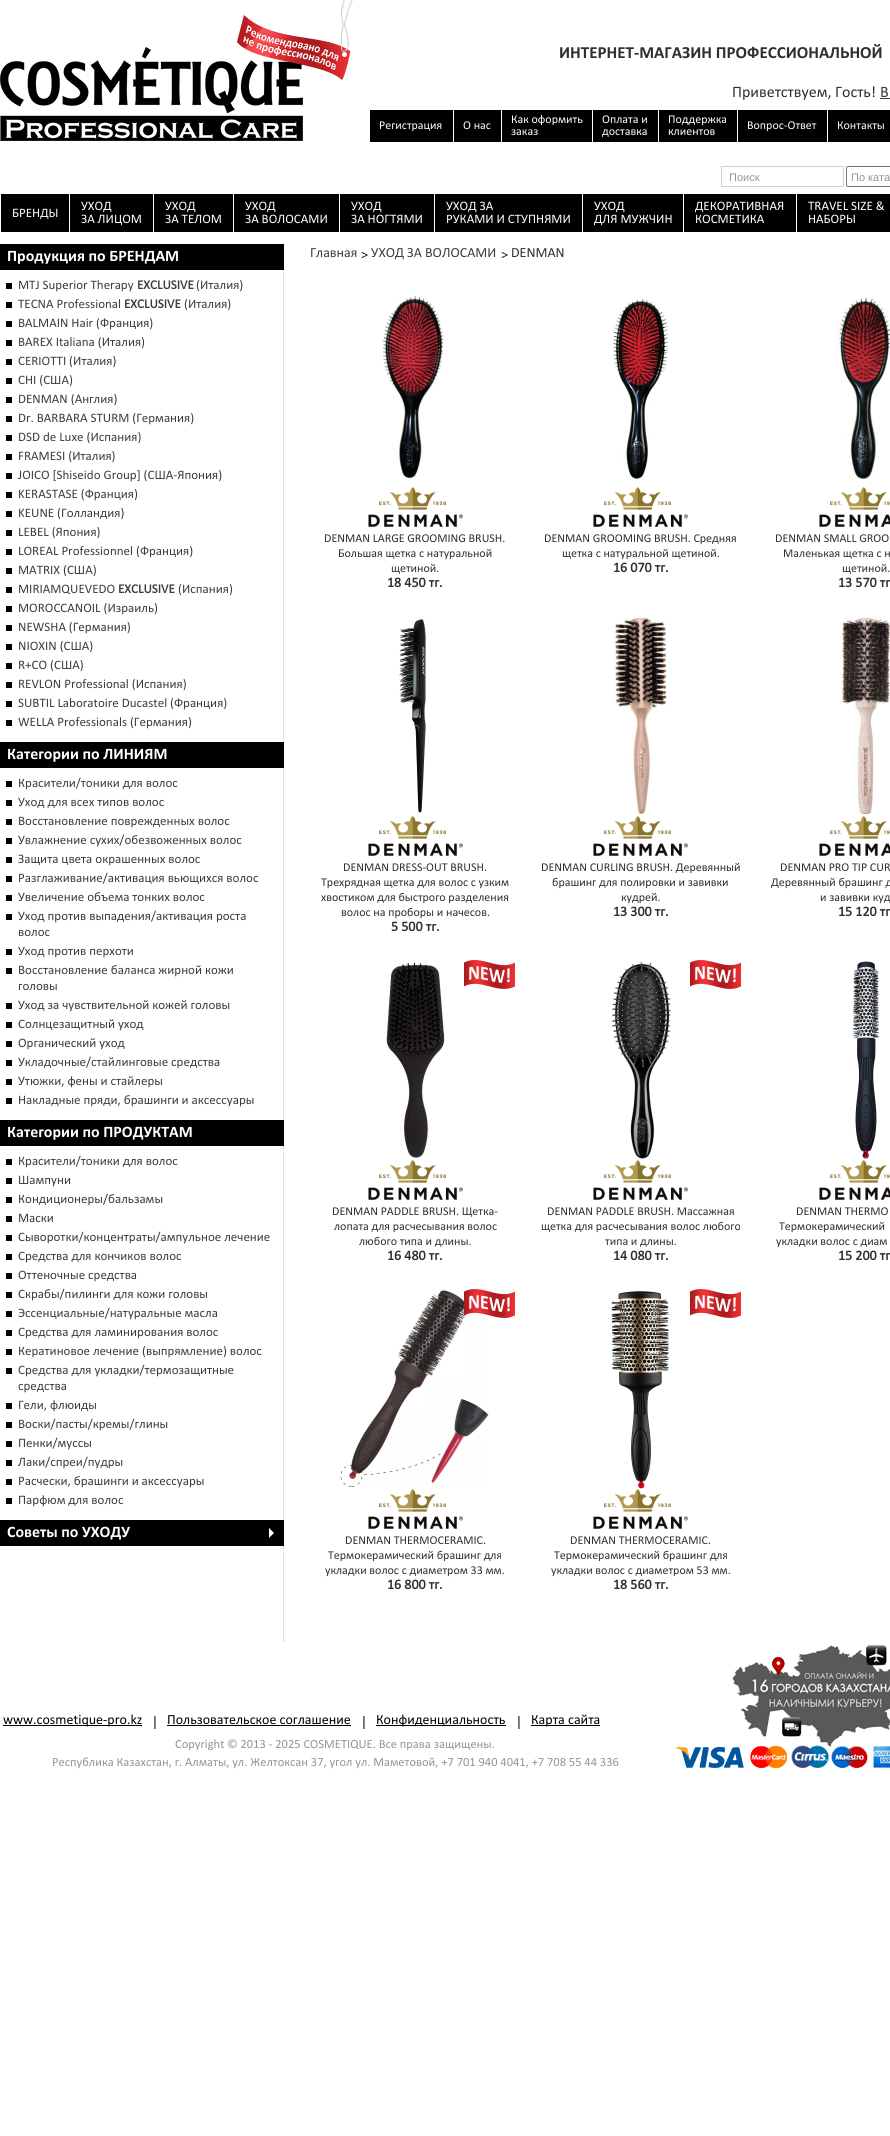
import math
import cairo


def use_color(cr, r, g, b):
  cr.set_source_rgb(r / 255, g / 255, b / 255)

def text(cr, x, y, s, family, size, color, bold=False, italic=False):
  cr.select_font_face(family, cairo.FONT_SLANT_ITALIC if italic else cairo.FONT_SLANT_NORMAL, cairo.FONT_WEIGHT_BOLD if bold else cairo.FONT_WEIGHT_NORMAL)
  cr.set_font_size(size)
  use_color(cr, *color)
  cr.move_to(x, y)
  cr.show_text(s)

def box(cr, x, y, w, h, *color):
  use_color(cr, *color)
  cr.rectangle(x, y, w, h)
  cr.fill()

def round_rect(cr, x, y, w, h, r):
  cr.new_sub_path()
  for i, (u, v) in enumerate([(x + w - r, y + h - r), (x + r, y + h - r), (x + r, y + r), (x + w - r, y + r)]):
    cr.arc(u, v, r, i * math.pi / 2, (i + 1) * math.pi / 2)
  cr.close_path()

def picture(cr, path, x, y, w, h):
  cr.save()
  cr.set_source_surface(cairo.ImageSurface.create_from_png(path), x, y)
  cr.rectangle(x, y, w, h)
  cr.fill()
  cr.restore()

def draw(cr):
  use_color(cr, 255, 255, 255)
  cr.paint()
  picture(cr, "img_01.png", 0, 0, 353, 141)
  box(cr, 880, 98, 10, 1, 56, 63, 65)
  box(cr, 370, 110, 520, 32, 0, 0, 0)
  box(cr, 453, 110, 1, 32, 255, 255, 255)
  box(cr, 501, 110, 1, 32, 255, 255, 255)
  box(cr, 592, 110, 1, 32, 255, 255, 255)
  box(cr, 658, 110, 1, 32, 255, 255, 255)
  box(cr, 737, 110, 1, 32, 255, 255, 255)
  box(cr, 827, 110, 1, 32, 255, 255, 255)
  round_rect(cr, 721.5, 166.5, 122, 20, 0.5)
  use_color(cr, 207, 207, 207)
  cr.set_line_width(1)
  cr.stroke()
  round_rect(cr, 846.5, 166.5, 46, 20, 1.5)
  use_color(cr, 118, 118, 118)
  cr.stroke()
  box(cr, 1, 194, 68, 38, 0, 0, 0)
  box(cr, 70, 194, 83, 38, 0, 0, 0)
  box(cr, 154, 194, 79, 38, 0, 0, 0)
  box(cr, 234, 194, 105, 38, 0, 0, 0)
  box(cr, 340, 194, 94, 38, 0, 0, 0)
  box(cr, 435, 194, 147, 38, 0, 0, 0)
  box(cr, 583, 194, 100, 38, 0, 0, 0)
  box(cr, 684, 194, 112, 38, 0, 0, 0)
  box(cr, 797, 194, 93, 38, 0, 0, 0)
  picture(cr, "img_02.png", 283, 270, 1, 1371)
  box(cr, 0, 244, 284, 26, 0, 0, 0)
  box(cr, 6, 283, 6, 6, 0, 0, 0)
  box(cr, 6, 302, 6, 6, 0, 0, 0)
  box(cr, 6, 321, 6, 6, 0, 0, 0)
  box(cr, 6, 340, 6, 6, 0, 0, 0)
  box(cr, 6, 359, 6, 6, 0, 0, 0)
  box(cr, 6, 378, 6, 6, 0, 0, 0)
  box(cr, 6, 397, 6, 6, 0, 0, 0)
  box(cr, 6, 416, 6, 6, 0, 0, 0)
  box(cr, 6, 435, 6, 6, 0, 0, 0)
  box(cr, 6, 454, 6, 6, 0, 0, 0)
  box(cr, 6, 473, 6, 6, 0, 0, 0)
  box(cr, 6, 492, 6, 6, 0, 0, 0)
  box(cr, 6, 511, 6, 6, 0, 0, 0)
  box(cr, 6, 530, 6, 6, 0, 0, 0)
  box(cr, 6, 549, 6, 6, 0, 0, 0)
  box(cr, 6, 568, 6, 6, 0, 0, 0)
  box(cr, 6, 587, 6, 6, 0, 0, 0)
  box(cr, 6, 606, 6, 6, 0, 0, 0)
  box(cr, 6, 625, 6, 6, 0, 0, 0)
  box(cr, 6, 644, 6, 6, 0, 0, 0)
  box(cr, 6, 663, 6, 6, 0, 0, 0)
  box(cr, 6, 682, 6, 6, 0, 0, 0)
  box(cr, 6, 701, 6, 6, 0, 0, 0)
  box(cr, 6, 720, 6, 6, 0, 0, 0)
  box(cr, 0, 742, 284, 26, 0, 0, 0)
  box(cr, 6, 781, 6, 6, 0, 0, 0)
  box(cr, 6, 800, 6, 6, 0, 0, 0)
  box(cr, 6, 819, 6, 6, 0, 0, 0)
  box(cr, 6, 838, 6, 6, 0, 0, 0)
  box(cr, 6, 857, 6, 6, 0, 0, 0)
  box(cr, 6, 876, 6, 6, 0, 0, 0)
  box(cr, 6, 895, 6, 6, 0, 0, 0)
  box(cr, 6, 914, 6, 6, 0, 0, 0)
  box(cr, 6, 949, 6, 6, 0, 0, 0)
  box(cr, 6, 968, 6, 6, 0, 0, 0)
  box(cr, 6, 1003, 6, 6, 0, 0, 0)
  box(cr, 6, 1022, 6, 6, 0, 0, 0)
  box(cr, 6, 1041, 6, 6, 0, 0, 0)
  box(cr, 6, 1060, 6, 6, 0, 0, 0)
  box(cr, 6, 1079, 6, 6, 0, 0, 0)
  box(cr, 6, 1098, 6, 6, 0, 0, 0)
  box(cr, 0, 1120, 284, 26, 0, 0, 0)
  box(cr, 6, 1159, 6, 6, 0, 0, 0)
  box(cr, 6, 1178, 6, 6, 0, 0, 0)
  box(cr, 6, 1197, 6, 6, 0, 0, 0)
  box(cr, 6, 1216, 6, 6, 0, 0, 0)
  box(cr, 6, 1235, 6, 6, 0, 0, 0)
  box(cr, 6, 1254, 6, 6, 0, 0, 0)
  box(cr, 6, 1273, 6, 6, 0, 0, 0)
  box(cr, 6, 1292, 6, 6, 0, 0, 0)
  box(cr, 6, 1311, 6, 6, 0, 0, 0)
  box(cr, 6, 1330, 6, 6, 0, 0, 0)
  box(cr, 6, 1349, 6, 6, 0, 0, 0)
  box(cr, 6, 1368, 6, 6, 0, 0, 0)
  box(cr, 6, 1403, 6, 6, 0, 0, 0)
  box(cr, 6, 1422, 6, 6, 0, 0, 0)
  box(cr, 6, 1441, 6, 6, 0, 0, 0)
  box(cr, 6, 1460, 6, 6, 0, 0, 0)
  box(cr, 6, 1479, 6, 6, 0, 0, 0)
  box(cr, 6, 1498, 6, 6, 0, 0, 0)
  box(cr, 0, 1520, 284, 26, 0, 0, 0)
  use_color(cr, 255, 255, 255)
  cr.new_path()
  cr.move_to(269, 1538)
  cr.line_to(269, 1528)
  cr.line_to(274, 1533)
  cr.close_path()
  cr.fill()
  picture(cr, "img_03.png", 361, 252, 7, 6)
  picture(cr, "img_03.png", 501, 252, 7, 6)
  picture(cr, "img_04.png", 382, 295, 62, 185)
  picture(cr, "img_05.png", 368, 487, 95, 40)
  picture(cr, "img_06.png", 612, 299, 57, 181)
  picture(cr, "img_05.png", 593, 487, 95, 40)
  picture(cr, "img_07.png", 837, 297, 53, 183)
  picture(cr, "img_08.png", 819, 487, 71, 40)
  picture(cr, "img_09.png", 399, 619, 27, 194)
  picture(cr, "img_05.png", 368, 816, 95, 40)
  picture(cr, "img_10.png", 614, 617, 53, 197)
  picture(cr, "img_05.png", 593, 816, 95, 40)
  picture(cr, "img_11.png", 841, 617, 49, 198)
  picture(cr, "img_08.png", 819, 816, 71, 40)
  picture(cr, "img_12.png", 386, 962, 59, 196)
  picture(cr, "img_13.png", 464, 960, 51, 29)
  picture(cr, "img_05.png", 368, 1160, 95, 40)
  picture(cr, "img_14.png", 611, 961, 60, 198)
  picture(cr, "img_13.png", 690, 960, 51, 29)
  picture(cr, "img_05.png", 593, 1160, 95, 40)
  picture(cr, "img_15.png", 852, 961, 28, 198)
  picture(cr, "img_08.png", 819, 1160, 71, 40)
  picture(cr, "img_16.png", 340, 1290, 149, 197)
  picture(cr, "img_17.png", 464, 1289, 51, 29)
  picture(cr, "img_05.png", 368, 1489, 95, 40)
  picture(cr, "img_18.png", 611, 1291, 58, 198)
  picture(cr, "img_13.png", 690, 1289, 51, 29)
  picture(cr, "img_05.png", 593, 1489, 95, 40)
  box(cr, 3, 1725, 139, 1, 0, 0, 0)
  picture(cr, "img_19.png", 154, 1716, 2, 13)
  box(cr, 167, 1725, 184, 1, 0, 0, 0)
  picture(cr, "img_19.png", 363, 1716, 2, 13)
  box(cr, 376, 1725, 130, 1, 0, 0, 0)
  picture(cr, "img_19.png", 518, 1716, 2, 13)
  box(cr, 531, 1725, 69, 1, 0, 0, 0)
  picture(cr, "img_20.png", 676, 1645, 214, 123)
  text(cr, 559, 58, "ИНТЕРНЕТ-МАГАЗИН ПРОФЕССИОНАЛЬНОЙ", "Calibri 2", 17, (47, 47, 47), bold=True)
  text(cr, 732, 97, "Приветствуем, Гость!", "Calibri", 16, (47, 47, 47))
  text(cr, 880, 97, "В", "Calibri", 16, (56, 63, 65))
  text(cr, 379, 129, "Регистрация", "Calibri", 12, (255, 255, 255))
  text(cr, 463, 129, "О нас", "Calibri", 12, (255, 255, 255))
  text(cr, 511, 123, "Как оформить", "Calibri", 12, (255, 255, 255))
  text(cr, 511, 135, "заказ", "Calibri", 12, (255, 255, 255))
  text(cr, 602, 123, "Оплата и", "Calibri", 12, (255, 255, 255))
  text(cr, 602, 135, "доставка", "Calibri", 12, (255, 255, 255))
  text(cr, 668, 123, "Поддержка", "Calibri", 12, (255, 255, 255))
  text(cr, 668, 135, "клиентов", "Calibri", 12, (255, 255, 255))
  text(cr, 747, 129, "Вопрос-Ответ", "Calibri", 12, (255, 255, 255))
  text(cr, 837, 129, "Контакты", "Calibri", 12, (255, 255, 255))
  text(cr, 729, 181, "Поиск", "Liberation Sans", 11, (148, 148, 148))
  text(cr, 851, 181, "По ката", "Liberation Sans", 11, (148, 148, 148))
  text(cr, 12, 217, "БРЕНДЫ", "Calibri", 13, (255, 255, 255))
  text(cr, 81, 210, "УХОД", "Calibri", 13, (255, 255, 255))
  text(cr, 81, 223, "ЗА ЛИЦОМ", "Calibri", 13, (255, 255, 255))
  text(cr, 165, 210, "УХОД", "Calibri", 13, (255, 255, 255))
  text(cr, 165, 223, "ЗА ТЕЛОМ", "Calibri", 13, (255, 255, 255))
  text(cr, 245, 210, "УХОД", "Calibri", 13, (255, 255, 255))
  text(cr, 245, 223, "ЗА ВОЛОСАМИ", "Calibri", 13, (255, 255, 255))
  text(cr, 351, 210, "УХОД", "Calibri", 13, (255, 255, 255))
  text(cr, 351, 223, "ЗА НОГТЯМИ", "Calibri", 13, (255, 255, 255))
  text(cr, 446, 210, "УХОД ЗА", "Calibri", 13, (255, 255, 255))
  text(cr, 446, 223, "РУКАМИ И СТУПНЯМИ", "Calibri", 13, (255, 255, 255))
  text(cr, 594, 210, "УХОД", "Calibri", 13, (255, 255, 255))
  text(cr, 594, 223, "ДЛЯ МУЖЧИН", "Calibri", 13, (255, 255, 255))
  text(cr, 695, 210, "ДЕКОРАТИВНАЯ", "Calibri", 13, (255, 255, 255))
  text(cr, 695, 223, "КОСМЕТИКА", "Calibri", 13, (255, 255, 255))
  text(cr, 808, 210, "TRAVEL SIZE &", "Calibri", 13, (255, 255, 255))
  text(cr, 808, 223, "НАБОРЫ", "Calibri", 13, (255, 255, 255))
  text(cr, 7, 261, "Продукция по БРЕНДАМ", "Calibri 2", 16, (255, 255, 255), bold=True)
  text(cr, 18, 289, "MTJ Superior Therapy", "Calibri", 13, (56, 63, 65))
  text(cr, 137, 289, "EXCLUSIVE", "Calibri", 13, (56, 63, 65), bold=True)
  text(cr, 196, 289, "(Италия)", "Calibri", 13, (56, 63, 65))
  text(cr, 18, 308, "TECNA Professional", "Calibri", 13, (56, 63, 65))
  text(cr, 124, 308, "EXCLUSIVE", "Calibri", 13, (56, 63, 65), bold=True)
  text(cr, 184, 308, "(Италия)", "Calibri", 13, (56, 63, 65))
  text(cr, 18, 327, "BALMAIN Hair (Франция)", "Calibri", 13, (56, 63, 65))
  text(cr, 18, 346, "BAREX Italiana (Италия)", "Calibri", 13, (56, 63, 65))
  text(cr, 18, 365, "CERIOTTI (Италия)", "Calibri", 13, (56, 63, 65))
  text(cr, 18, 384, "CHI (США)", "Calibri", 13, (56, 63, 65))
  text(cr, 18, 403, "DENMAN (Англия)", "Calibri", 13, (56, 63, 65))
  text(cr, 18, 422, "Dr. BARBARA STURM (Германия)", "Calibri", 13, (56, 63, 65))
  text(cr, 18, 441, "DSD de Luxe (Испания)", "Calibri", 13, (56, 63, 65))
  text(cr, 18, 460, "FRAMESI (Италия)", "Calibri", 13, (56, 63, 65))
  text(cr, 18, 479, "JOICO [Shiseido Group] (США-Япония)", "Calibri", 13, (56, 63, 65))
  text(cr, 18, 498, "KERASTASE (Франция)", "Calibri", 13, (56, 63, 65))
  text(cr, 18, 517, "KEUNE (Голландия)", "Calibri", 13, (56, 63, 65))
  text(cr, 18, 536, "LEBEL (Япония)", "Calibri", 13, (56, 63, 65))
  text(cr, 18, 555, "LOREAL Professionnel (Франция)", "Calibri", 13, (56, 63, 65))
  text(cr, 18, 574, "MATRIX (США)", "Calibri", 13, (56, 63, 65))
  text(cr, 18, 593, "MIRIAMQUEVEDO", "Calibri", 13, (56, 63, 65))
  text(cr, 118, 593, "EXCLUSIVE", "Calibri", 13, (56, 63, 65), bold=True)
  text(cr, 178, 593, "(Испания)", "Calibri", 13, (56, 63, 65))
  text(cr, 18, 612, "MOROCCANOIL (Израиль)", "Calibri", 13, (56, 63, 65))
  text(cr, 18, 631, "NEWSHA (Германия)", "Calibri", 13, (56, 63, 65))
  text(cr, 18, 650, "NIOXIN (США)", "Calibri", 13, (56, 63, 65))
  text(cr, 18, 669, "R+CO (США)", "Calibri", 13, (56, 63, 65))
  text(cr, 18, 688, "REVLON Professional (Испания)", "Calibri", 13, (56, 63, 65))
  text(cr, 18, 707, "SUBTIL Laboratoire Ducastel (Франция)", "Calibri", 13, (56, 63, 65))
  text(cr, 18, 726, "WELLA Professionals (Германия)", "Calibri", 13, (56, 63, 65))
  text(cr, 7, 759, "Категории по ЛИНИЯМ", "Calibri 2", 16, (255, 255, 255), bold=True)
  text(cr, 18, 787, "Красители/тоники для волос", "Calibri", 13, (56, 63, 65))
  text(cr, 18, 806, "Уход для всех типов волос", "Calibri", 13, (56, 63, 65))
  text(cr, 18, 825, "Восстановление поврежденных волос", "Calibri", 13, (56, 63, 65))
  text(cr, 18, 844, "Увлажнение сухих/обезвоженных волос", "Calibri", 13, (56, 63, 65))
  text(cr, 18, 863, "Защита цвета окрашенных волос", "Calibri", 13, (56, 63, 65))
  text(cr, 18, 882, "Разглаживание/активация вьющихся волос", "Calibri", 13, (56, 63, 65))
  text(cr, 18, 901, "Увеличение объема тонких волос", "Calibri", 13, (56, 63, 65))
  text(cr, 18, 920, "Уход против выпадения/активация роста", "Calibri", 13, (56, 63, 65))
  text(cr, 18, 936, "волос", "Calibri", 13, (56, 63, 65))
  text(cr, 18, 955, "Уход против перхоти", "Calibri", 13, (56, 63, 65))
  text(cr, 18, 974, "Восстановление баланса жирной кожи", "Calibri", 13, (56, 63, 65))
  text(cr, 18, 990, "головы", "Calibri", 13, (56, 63, 65))
  text(cr, 18, 1009, "Уход за чувствительной кожей головы", "Calibri", 13, (56, 63, 65))
  text(cr, 18, 1028, "Солнцезащитный уход", "Calibri", 13, (56, 63, 65))
  text(cr, 18, 1047, "Органический уход", "Calibri", 13, (56, 63, 65))
  text(cr, 18, 1066, "Укладочные/стайлинговые средства", "Calibri", 13, (56, 63, 65))
  text(cr, 18, 1085, "Утюжки, фены и стайлеры", "Calibri", 13, (56, 63, 65))
  text(cr, 18, 1104, "Накладные пряди, брашинги и аксессуары", "Calibri", 13, (56, 63, 65))
  text(cr, 7, 1137, "Категории по ПРОДУКТАМ", "Calibri 2", 16, (255, 255, 255), bold=True)
  text(cr, 18, 1165, "Красители/тоники для волос", "Calibri", 13, (56, 63, 65))
  text(cr, 18, 1184, "Шампуни", "Calibri", 13, (56, 63, 65))
  text(cr, 18, 1203, "Кондиционеры/бальзамы", "Calibri", 13, (56, 63, 65))
  text(cr, 18, 1222, "Маски", "Calibri", 13, (56, 63, 65))
  text(cr, 18, 1241, "Сыворотки/концентраты/ампульное лечение", "Calibri", 13, (56, 63, 65))
  text(cr, 18, 1260, "Средства для кончиков волос", "Calibri", 13, (56, 63, 65))
  text(cr, 18, 1279, "Оттеночные средства", "Calibri", 13, (56, 63, 65))
  text(cr, 18, 1298, "Скрабы/пилинги для кожи головы", "Calibri", 13, (56, 63, 65))
  text(cr, 18, 1317, "Эссенциальные/натуральные масла", "Calibri", 13, (56, 63, 65))
  text(cr, 18, 1336, "Средства для ламинирования волос", "Calibri", 13, (56, 63, 65))
  text(cr, 18, 1355, "Кератиновое лечение (выпрямление) волос", "Calibri", 13, (56, 63, 65))
  text(cr, 18, 1374, "Средства для укладки/термозащитные", "Calibri", 13, (56, 63, 65))
  text(cr, 18, 1390, "средства", "Calibri", 13, (56, 63, 65))
  text(cr, 18, 1409, "Гели, флюиды", "Calibri", 13, (56, 63, 65))
  text(cr, 18, 1428, "Воски/пасты/кремы/глины", "Calibri", 13, (56, 63, 65))
  text(cr, 18, 1447, "Пенки/муссы", "Calibri", 13, (56, 63, 65))
  text(cr, 18, 1466, "Лаки/спреи/пудры", "Calibri", 13, (56, 63, 65))
  text(cr, 18, 1485, "Расчески, брашинги и аксессуары", "Calibri", 13, (56, 63, 65))
  text(cr, 18, 1504, "Парфюм для волос", "Calibri", 13, (56, 63, 65))
  text(cr, 7, 1537, "Советы по УХОДУ", "Calibri 2", 16, (255, 255, 255), bold=True)
  text(cr, 310, 257, "Главная", "Calibri", 14, (56, 63, 65))
  text(cr, 371, 257, "УХОД ЗА ВОЛОСАМИ", "Calibri", 14, (56, 63, 65))
  text(cr, 511, 257, "DENMAN", "Calibri", 14, (47, 47, 47))
  text(cr, 324, 542, "DENMAN LARGE GROOMING BRUSH.", "Calibri", 12, (47, 47, 47))
  text(cr, 338, 557, "Большая щетка с натуральной", "Calibri", 12, (47, 47, 47))
  text(cr, 391, 572, "щетиной.", "Calibri", 12, (47, 47, 47))
  text(cr, 387, 587, "18 450 тг.", "Calibri", 14, (47, 47, 47), bold=True)
  text(cr, 544, 542, "DENMAN GROOMING BRUSH. Средняя", "Calibri", 12, (47, 47, 47))
  text(cr, 562, 557, "щетка с натуральной щетиной.", "Calibri", 12, (47, 47, 47))
  text(cr, 613, 572, "16 070 тг.", "Calibri", 14, (47, 47, 47), bold=True)
  text(cr, 775, 542, "DENMAN SMALL GROO", "Calibri", 12, (47, 47, 47))
  text(cr, 783, 557, "Маленькая щетка с н", "Calibri", 12, (47, 47, 47))
  text(cr, 842, 572, "щетиной.", "Calibri", 12, (47, 47, 47))
  text(cr, 838, 587, "13 570 тг", "Calibri", 14, (47, 47, 47), bold=True)
  text(cr, 343, 871, "DENMAN DRESS-OUT BRUSH.", "Calibri", 12, (47, 47, 47))
  text(cr, 321, 886, "Трехрядная щетка для волос с узким", "Calibri", 12, (47, 47, 47))
  text(cr, 321, 901, "хвостиком для быстрого разделения", "Calibri", 12, (47, 47, 47))
  text(cr, 341, 916, "волос на проборы и начесов.", "Calibri", 12, (47, 47, 47))
  text(cr, 391, 931, "5 500 тг.", "Calibri", 14, (47, 47, 47), bold=True)
  text(cr, 541, 871, "DENMAN CURLING BRUSH. Деревянный", "Calibri", 12, (47, 47, 47))
  text(cr, 552, 886, "брашинг для полировки и завивки", "Calibri", 12, (47, 47, 47))
  text(cr, 621, 901, "кудрей.", "Calibri", 12, (47, 47, 47))
  text(cr, 613, 916, "13 300 тг.", "Calibri", 14, (47, 47, 47), bold=True)
  text(cr, 780, 871, "DENMAN PRO TIP CUR", "Calibri", 12, (47, 47, 47))
  text(cr, 771, 886, "Деревянный брашинг д", "Calibri", 12, (47, 47, 47))
  text(cr, 820, 901, "и завивки куд", "Calibri", 12, (47, 47, 47))
  text(cr, 838, 916, "15 120 тг", "Calibri", 14, (47, 47, 47), bold=True)
  text(cr, 332, 1215, "DENMAN PADDLE BRUSH. Щетка-", "Calibri", 12, (47, 47, 47))
  text(cr, 334, 1230, "лопата для расчесывания волос", "Calibri", 12, (47, 47, 47))
  text(cr, 359, 1245, "любого типа и длины.", "Calibri", 12, (47, 47, 47))
  text(cr, 387, 1260, "16 480 тг.", "Calibri", 14, (47, 47, 47), bold=True)
  text(cr, 547, 1215, "DENMAN PADDLE BRUSH. Массажная", "Calibri", 12, (47, 47, 47))
  text(cr, 541, 1230, "щетка для расчесывания волос любого", "Calibri", 12, (47, 47, 47))
  text(cr, 605, 1245, "типа и длины.", "Calibri", 12, (47, 47, 47))
  text(cr, 613, 1260, "14 080 тг.", "Calibri", 14, (47, 47, 47), bold=True)
  text(cr, 796, 1215, "DENMAN THERMO", "Calibri", 12, (47, 47, 47))
  text(cr, 779, 1230, "Термокерамический", "Calibri", 12, (47, 47, 47))
  text(cr, 776, 1245, "укладки волос с диам", "Calibri", 12, (47, 47, 47))
  text(cr, 838, 1260, "15 200 тг", "Calibri", 14, (47, 47, 47), bold=True)
  text(cr, 345, 1544, "DENMAN THERMOCERAMIC.", "Calibri", 12, (47, 47, 47))
  text(cr, 328, 1559, "Термокерамический брашинг для", "Calibri", 12, (47, 47, 47))
  text(cr, 325, 1574, "укладки волос с диаметром 33 мм.", "Calibri", 12, (47, 47, 47))
  text(cr, 387, 1589, "16 800 тг.", "Calibri", 14, (47, 47, 47), bold=True)
  text(cr, 570, 1544, "DENMAN THERMOCERAMIC.", "Calibri", 12, (47, 47, 47))
  text(cr, 554, 1559, "Термокерамический брашинг для", "Calibri", 12, (47, 47, 47))
  text(cr, 551, 1574, "укладки волос с диаметром 53 мм.", "Calibri", 12, (47, 47, 47))
  text(cr, 613, 1589, "18 560 тг.", "Calibri", 14, (47, 47, 47), bold=True)
  text(cr, 3, 1724, "www.cosmetique-pro.kz", "Calibri", 14, (0, 0, 0))
  text(cr, 167, 1724, "Пользовательское cоглашение", "Calibri", 14, (0, 0, 0))
  text(cr, 376, 1724, "Конфиденциальность", "Calibri", 14, (0, 0, 0))
  text(cr, 531, 1724, "Карта сайта", "Calibri", 14, (0, 0, 0))
  text(cr, 175, 1748, "Copyright © 2013 - 2025 COSMETIQUE. Все права защищены.", "Calibri", 12.5, (148, 148, 148))
  text(cr, 52, 1766, "Республика Казахстан, г. Алматы, ул. Желтоксан 37, угол ул. Маметовой, +7 701 940 4041, +7 708 55 44 336", "Calibri", 12.5, (148, 148, 148))


surface = cairo.ImageSurface(cairo.FORMAT_RGB24, 890, 2136)
cr = cairo.Context(surface)
options = cairo.FontOptions()
options.set_hint_metrics(cairo.HINT_METRICS_OFF)
options.set_hint_style(cairo.HINT_STYLE_NONE)
cr.set_font_options(options)
cr.set_miter_limit(4)
draw(cr)
surface.write_to_png("out.png")
